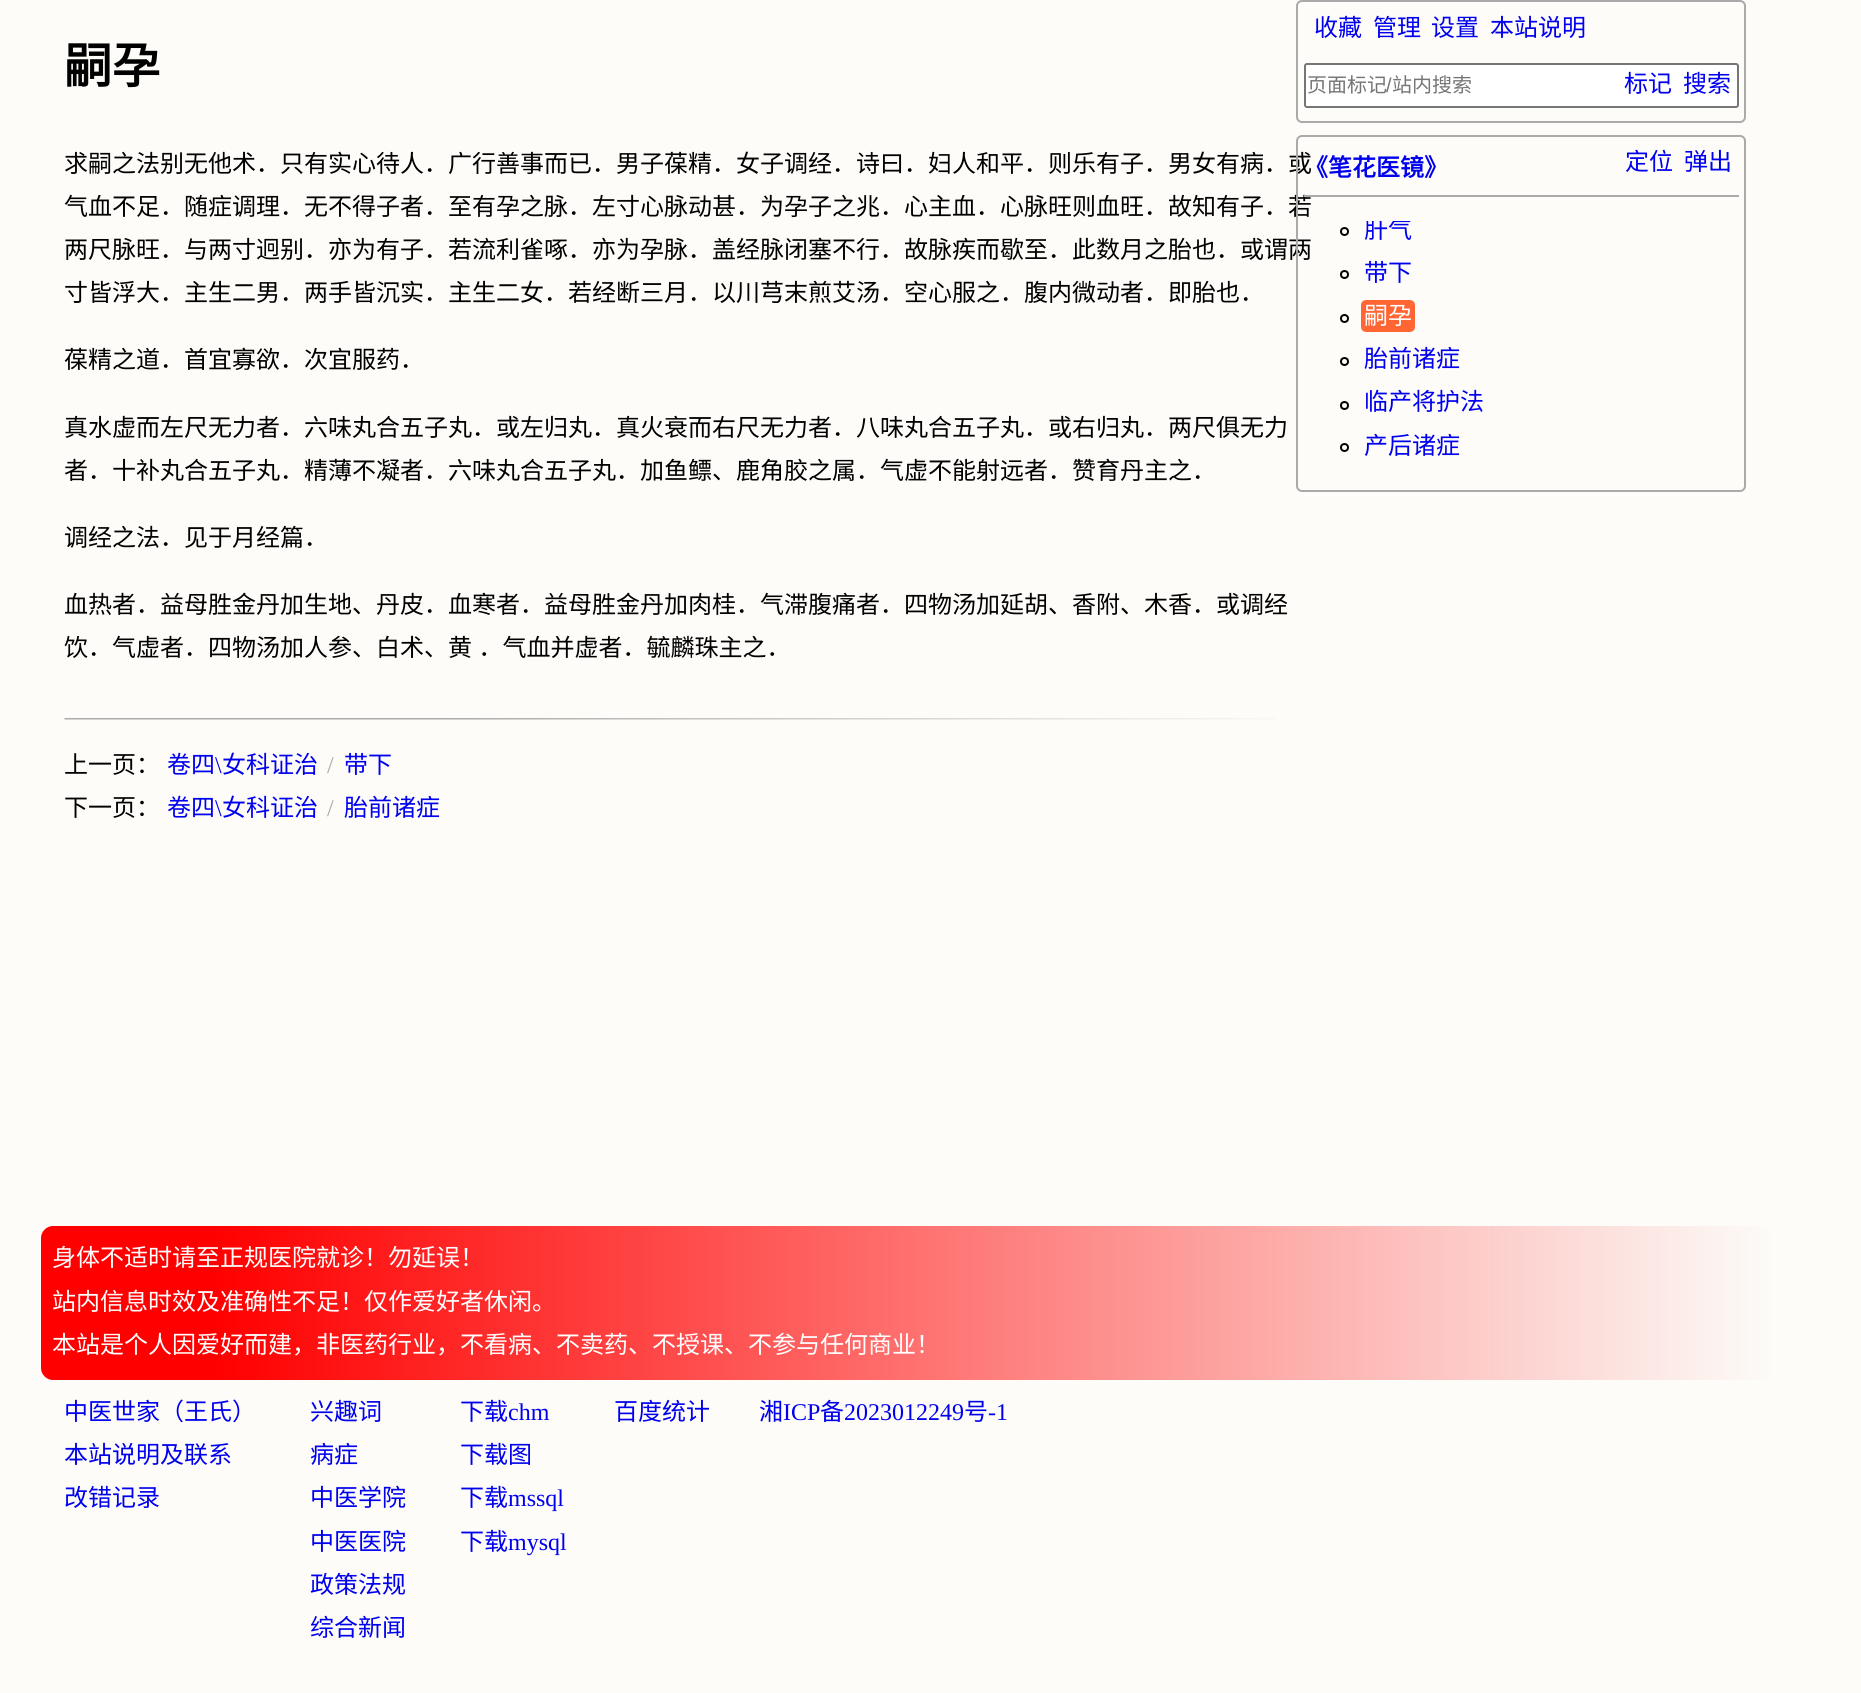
import math
import cairo


def use_color(cr, r, g, b):
  cr.set_source_rgb(r / 255, g / 255, b / 255)

def text(cr, x, y, s, family, size, color, bold=False, italic=False):
  cr.select_font_face(family, cairo.FONT_SLANT_ITALIC if italic else cairo.FONT_SLANT_NORMAL, cairo.FONT_WEIGHT_BOLD if bold else cairo.FONT_WEIGHT_NORMAL)
  cr.set_font_size(size)
  use_color(cr, *color)
  cr.move_to(x, y)
  cr.show_text(s)

def spaced_text(cr, x, y, s, letter, word):
  cr.move_to(x, y)
  for ch in s:
    cr.show_text(ch)
    cr.rel_move_to(letter + word * (ch == ' '), 0)

def box(cr, x, y, w, h, *color):
  use_color(cr, *color)
  cr.rectangle(x, y, w, h)
  cr.fill()

def round_rect(cr, x, y, w, h, r):
  cr.new_sub_path()
  for i, (u, v) in enumerate([(x + w - r, y + h - r), (x + r, y + h - r), (x + r, y + r), (x + w - r, y + r)]):
    cr.arc(u, v, r, i * math.pi / 2, (i + 1) * math.pi / 2)
  cr.close_path()

def picture(cr, path, x, y, w, h):
  cr.save()
  cr.set_source_surface(cairo.ImageSurface.create_from_png(path), x, y)
  cr.rectangle(x, y, w, h)
  cr.fill()
  cr.restore()

def draw(cr):
  use_color(cr, 253, 252, 248)
  cr.paint()
  picture(cr, "img_01.png", 64, 718, 1212, 2)
  round_rect(cr, 1297, 1, 448, 121, 5)
  use_color(cr, 170, 170, 170)
  cr.stroke()
  use_color(cr, 255, 255, 255)
  round_rect(cr, 1305, 64, 433, 43, 2)
  cr.fill_preserve()
  use_color(cr, 118, 118, 118)
  cr.stroke()
  gradient = cairo.LinearGradient(41, 1303, 1775, 1303)
  gradient.add_color_stop_rgba(0.1, 1, 0, 0, 1)
  gradient.add_color_stop_rgba(1, 0.988, 0.988, 0.973, 1)
  cr.set_source(gradient)
  cr.new_path()
  cr.move_to(53, 1226)
  cr.line_to(1775, 1226)
  cr.line_to(1775, 1380)
  cr.line_to(53, 1380)
  cr.curve_to(46.5, 1380, 41, 1374.5, 41, 1368)
  cr.line_to(41, 1238)
  cr.curve_to(41, 1231.5, 46.5, 1226, 53, 1226)
  cr.close_path()
  cr.fill()
  text(cr, 64, 83, "嗣孕", "Noto Sans CJK SC", 48, (0, 0, 0), bold=True)
  text(cr, 64, 172, "求嗣之法别无他术．只有实心待人．广行善事而已．男子葆精．女子调经．诗曰．妇人和平．则乐有子．男女有病．或", "Noto Sans CJK SC", 24, (0, 0, 0))
  text(cr, 64, 215, "气血不足．随症调理．无不得子者．至有孕之脉．左寸心脉动甚．为孕子之兆．心主血．心脉旺则血旺．故知有子．若", "Noto Sans CJK SC", 24, (0, 0, 0))
  text(cr, 64, 258, "两尺脉旺．与两寸迥别．亦为有子．若流利雀啄．亦为孕脉．盖经脉闭塞不行．故脉疾而歇至．此数月之胎也．或谓两", "Noto Sans CJK SC", 24, (0, 0, 0))
  text(cr, 64, 301, "寸皆浮大．主生二男．两手皆沉实．主生二女．若经断三月．以川芎末煎艾汤．空心服之．腹内微动者．即胎也．", "Noto Sans CJK SC", 24, (0, 0, 0))
  text(cr, 64, 368, "葆精之道．首宜寡欲．次宜服药．", "Noto Sans CJK SC", 24, (0, 0, 0))
  text(cr, 64, 436, "真水虚而左尺无力者．六味丸合五子丸．或左归丸．真火衰而右尺无力者．八味丸合五子丸．或右归丸．两尺俱无力", "Noto Sans CJK SC", 24, (0, 0, 0))
  text(cr, 64, 479, "者．十补丸合五子丸．精薄不凝者．六味丸合五子丸．加鱼鳔、鹿角胶之属．气虚不能射远者．赞育丹主之．", "Noto Sans CJK SC", 24, (0, 0, 0))
  text(cr, 64, 546, "调经之法．见于月经篇．", "Noto Sans CJK SC", 24, (0, 0, 0))
  text(cr, 64, 613, "血热者．益母胜金丹加生地、丹皮．血寒者．益母胜金丹加肉桂．气滞腹痛者．四物汤加延胡、香附、木香．或调经", "Noto Sans CJK SC", 24, (0, 0, 0))
  spaced_text(cr, 64, 656, "饮．气虚者．四物汤加人参、白术、黄 ．气血并虚者．毓麟珠主之．", 0, 1)
  text(cr, 64, 773, "上一页：", "Noto Sans CJK SC", 24, (0, 0, 0))
  text(cr, 167, 773, "卷四", "Noto Sans CJK SC", 24, (0, 0, 238))
  text(cr, 215, 773, "\\", "Liberation Serif", 24, (0, 0, 238))
  text(cr, 222, 773, "女科证治", "Noto Sans CJK SC", 24, (0, 0, 238))
  text(cr, 327, 773, "/", "Liberation Serif", 24, (170, 170, 170))
  text(cr, 344, 773, "带下", "Noto Sans CJK SC", 24, (0, 0, 238))
  text(cr, 64, 816, "下一页：", "Noto Sans CJK SC", 24, (0, 0, 0))
  text(cr, 167, 816, "卷四", "Noto Sans CJK SC", 24, (0, 0, 238))
  text(cr, 215, 816, "\\", "Liberation Serif", 24, (0, 0, 238))
  text(cr, 222, 816, "女科证治", "Noto Sans CJK SC", 24, (0, 0, 238))
  text(cr, 327, 816, "/", "Liberation Serif", 24, (170, 170, 170))
  text(cr, 344, 816, "胎前诸症", "Noto Sans CJK SC", 24, (0, 0, 238))
  text(cr, 1314, 36, "收藏", "Noto Sans CJK SC", 24, (0, 0, 238))
  text(cr, 1373, 36, "管理", "Noto Sans CJK SC", 24, (0, 0, 238))
  text(cr, 1431, 36, "设置", "Noto Sans CJK SC", 24, (0, 0, 238))
  text(cr, 1490, 36, "本站说明", "Noto Sans CJK SC", 24, (0, 0, 238))
  text(cr, 1307, 92, "页面标记", "Noto Sans CJK SC", 20, (117, 117, 117))
  text(cr, 1386, 92, "/", "Liberation Sans", 20, (117, 117, 117))
  text(cr, 1392, 92, "站内搜索", "Noto Sans CJK SC", 20, (117, 117, 117))
  text(cr, 1624, 92, "标记", "Noto Sans CJK SC", 24, (0, 0, 238))
  text(cr, 1683, 92, "搜索", "Noto Sans CJK SC", 24, (0, 0, 238))
  round_rect(cr, 1297, 136, 448, 355, 5)
  use_color(cr, 170, 170, 170)
  cr.stroke()
  box(cr, 1304, 195, 435, 2, 170, 170, 170)
  text(cr, 1304, 176, "《笔花医镜》", "Noto Sans CJK SC", 24, (0, 0, 238), bold=True)
  text(cr, 1625, 170, "定位", "Noto Sans CJK SC", 24, (0, 0, 238))
  text(cr, 1684, 170, "弹出", "Noto Sans CJK SC", 24, (0, 0, 238))
  cr.new_path()
  cr.arc(1344.5, 231.5, 3.5, 0, 2 * math.pi)
  use_color(cr, 0, 0, 0)
  cr.stroke()
  cr.save()
  cr.rectangle(1304, 221, 435, 240)
  cr.clip()
  text(cr, 1364, 238, "肝气", "Noto Sans CJK SC", 24, (0, 0, 238))
  cr.restore()
  cr.new_path()
  cr.arc(1344.5, 274.5, 3.5, 0, 2 * math.pi)
  cr.stroke()
  text(cr, 1364, 281, "带下", "Noto Sans CJK SC", 24, (0, 0, 238))
  cr.new_path()
  cr.arc(1344.5, 318.5, 3.5, 0, 2 * math.pi)
  use_color(cr, 0, 0, 0)
  cr.stroke()
  round_rect(cr, 1362.5, 301.5, 51, 29, 3.5)
  use_color(cr, 255, 102, 51)
  cr.set_line_width(3)
  cr.stroke()
  round_rect(cr, 1364, 303, 48, 26, 1.5)
  cr.fill()
  text(cr, 1364, 324, "嗣孕", "Noto Sans CJK SC", 24, (255, 255, 255))
  cr.new_path()
  cr.arc(1344.5, 361.5, 3.5, 0, 2 * math.pi)
  use_color(cr, 0, 0, 0)
  cr.set_line_width(2)
  cr.stroke()
  text(cr, 1364, 367, "胎前诸症", "Noto Sans CJK SC", 24, (0, 0, 238))
  cr.new_path()
  cr.arc(1344.5, 405.5, 3.5, 0, 2 * math.pi)
  use_color(cr, 0, 0, 0)
  cr.stroke()
  text(cr, 1364, 410, "临产将护法", "Noto Sans CJK SC", 24, (0, 0, 238))
  cr.new_path()
  cr.arc(1344.5, 447.5, 3.5, 0, 2 * math.pi)
  use_color(cr, 0, 0, 0)
  cr.stroke()
  text(cr, 1364, 454, "产后诸症", "Noto Sans CJK SC", 24, (0, 0, 238))
  text(cr, 52, 1266, "身体不适时请至正规医院就诊！勿延误！", "Noto Sans CJK SC", 24, (255, 255, 255))
  text(cr, 52, 1310, "站内信息时效及准确性不足！仅作爱好者休闲。", "Noto Sans CJK SC", 24, (255, 255, 255))
  text(cr, 52, 1353, "本站是个人因爱好而建，非医药行业，不看病、不卖药、不授课、不参与任何商业！", "Noto Sans CJK SC", 24, (255, 255, 255))
  text(cr, 64, 1420, "中医世家（王氏）", "Noto Sans CJK SC", 24, (0, 0, 238))
  text(cr, 64, 1463, "本站说明及联系", "Noto Sans CJK SC", 24, (0, 0, 238))
  text(cr, 64, 1506, "改错记录", "Noto Sans CJK SC", 24, (0, 0, 238))
  text(cr, 310, 1420, "兴趣词", "Noto Sans CJK SC", 24, (0, 0, 238))
  text(cr, 310, 1463, "病症", "Noto Sans CJK SC", 24, (0, 0, 238))
  text(cr, 310, 1506, "中医学院", "Noto Sans CJK SC", 24, (0, 0, 238))
  text(cr, 310, 1550, "中医医院", "Noto Sans CJK SC", 24, (0, 0, 238))
  text(cr, 310, 1593, "政策法规", "Noto Sans CJK SC", 24, (0, 0, 238))
  text(cr, 310, 1636, "综合新闻", "Noto Sans CJK SC", 24, (0, 0, 238))
  text(cr, 460, 1420, "下载", "Noto Sans CJK SC", 24, (0, 0, 238))
  text(cr, 508, 1420, "chm", "Liberation Serif", 24, (0, 0, 238))
  text(cr, 460, 1463, "下载图", "Noto Sans CJK SC", 24, (0, 0, 238))
  text(cr, 460, 1506, "下载", "Noto Sans CJK SC", 24, (0, 0, 238))
  text(cr, 508, 1506, "mssql", "Liberation Serif", 24, (0, 0, 238))
  text(cr, 460, 1550, "下载", "Noto Sans CJK SC", 24, (0, 0, 238))
  text(cr, 508, 1550, "mysql", "Liberation Serif", 24, (0, 0, 238))
  text(cr, 614, 1420, "百度统计", "Noto Sans CJK SC", 24, (0, 0, 238))
  text(cr, 759, 1420, "湘", "Noto Sans CJK SC", 24, (0, 0, 238))
  text(cr, 783, 1420, "ICP", "Liberation Serif", 24, (0, 0, 238))
  text(cr, 820, 1420, "备", "Noto Sans CJK SC", 24, (0, 0, 238))
  text(cr, 844, 1420, "2023012249", "Liberation Serif", 24, (0, 0, 238))
  text(cr, 964, 1420, "号", "Noto Sans CJK SC", 24, (0, 0, 238))
  text(cr, 988, 1420, "-1", "Liberation Serif", 24, (0, 0, 238))


surface = cairo.ImageSurface(cairo.FORMAT_RGB24, 1861, 1693)
cr = cairo.Context(surface)
options = cairo.FontOptions()
options.set_hint_metrics(cairo.HINT_METRICS_OFF)
options.set_hint_style(cairo.HINT_STYLE_NONE)
cr.set_font_options(options)
cr.set_miter_limit(4)
draw(cr)
surface.write_to_png("out.png")
